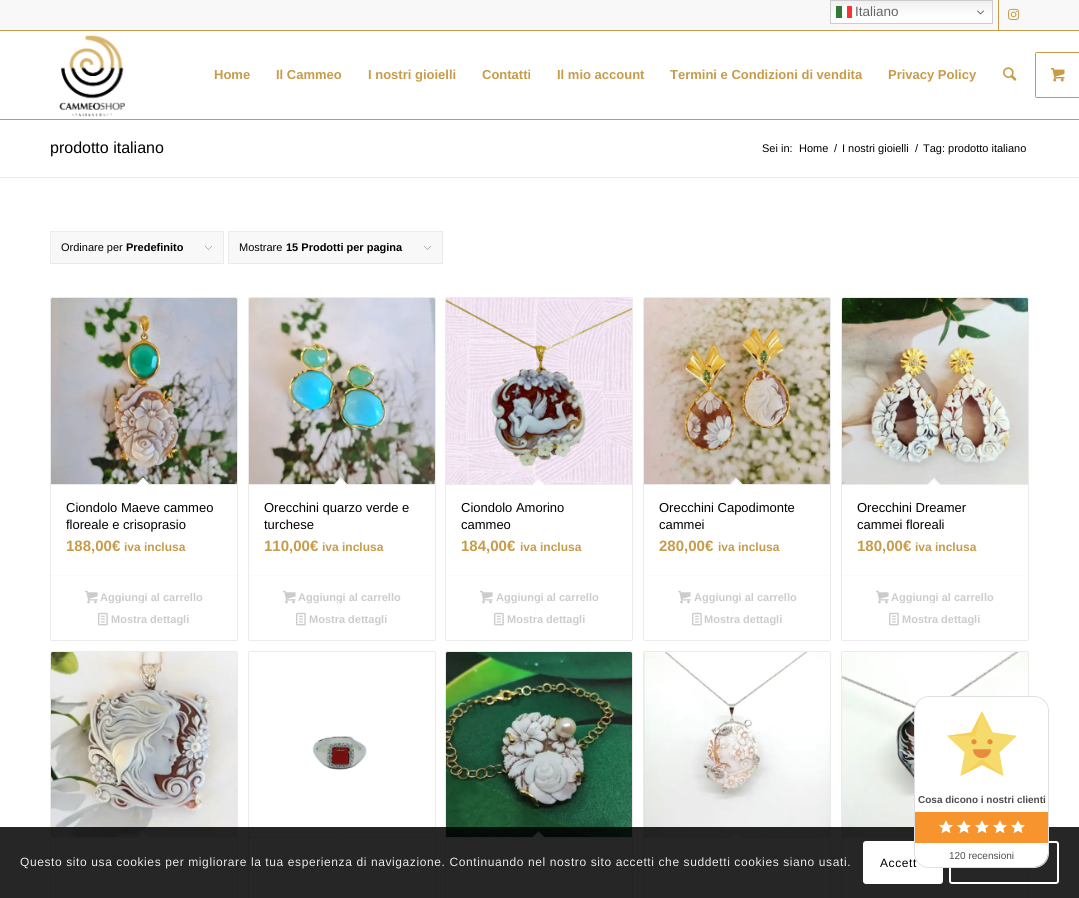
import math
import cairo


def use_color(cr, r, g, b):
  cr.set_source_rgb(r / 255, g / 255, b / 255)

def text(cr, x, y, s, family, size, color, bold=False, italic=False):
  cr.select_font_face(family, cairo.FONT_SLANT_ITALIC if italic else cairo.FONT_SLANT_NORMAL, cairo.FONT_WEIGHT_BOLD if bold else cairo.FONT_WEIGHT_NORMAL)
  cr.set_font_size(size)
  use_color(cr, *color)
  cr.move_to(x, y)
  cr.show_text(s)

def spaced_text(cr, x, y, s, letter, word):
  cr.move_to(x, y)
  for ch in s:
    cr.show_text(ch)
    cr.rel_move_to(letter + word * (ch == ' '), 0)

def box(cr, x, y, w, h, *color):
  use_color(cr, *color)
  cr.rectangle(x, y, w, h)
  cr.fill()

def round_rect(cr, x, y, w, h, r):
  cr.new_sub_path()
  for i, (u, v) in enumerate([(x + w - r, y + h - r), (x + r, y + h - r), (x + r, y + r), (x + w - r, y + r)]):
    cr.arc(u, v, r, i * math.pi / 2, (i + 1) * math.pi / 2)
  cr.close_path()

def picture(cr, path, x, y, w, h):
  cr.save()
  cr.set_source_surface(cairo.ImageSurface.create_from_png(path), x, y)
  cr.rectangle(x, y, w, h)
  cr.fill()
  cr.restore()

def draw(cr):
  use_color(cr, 255, 255, 255)
  cr.paint()
  box(cr, 0, 0, 1079, 30, 248, 248, 248)
  gradient = cairo.LinearGradient(912, 0, 912, 24)
  gradient.add_color_stop_rgba(0, 0.937, 0.937, 0.937, 1)
  gradient.add_color_stop_rgba(0.7, 1, 1, 1, 1)
  cr.set_source(gradient)
  cr.rectangle(831, 1, 161, 22)
  cr.fill()
  gradient = cairo.LinearGradient(912, 0, 912, 24)
  gradient.add_color_stop_rgba(0, 0.988, 0.988, 0.988, 1)
  gradient.add_color_stop_rgba(0.7, 1, 1, 1, 1)
  cr.set_source(gradient)
  cr.rectangle(842, 6, 5, 12)
  cr.fill()
  cr.rectangle(830.5, 0.5, 162, 23)
  use_color(cr, 204, 204, 204)
  cr.set_line_width(1)
  cr.stroke()
  box(cr, 836, 6, 6, 12, 51, 120, 51)
  box(cr, 847, 6, 5, 12, 252, 51, 51)
  picture(cr, "img_01.png", 977, 10, 7, 5)
  box(cr, 0, 30, 1079, 1, 199, 155, 73)
  box(cr, 998, 0, 1, 30, 199, 155, 73)
  picture(cr, "img_02.png", 1008, 8, 12, 12)
  box(cr, 0, 119, 1079, 1, 199, 155, 73)
  picture(cr, "img_03.png", 59, 35, 66, 82)
  picture(cr, "img_04.png", 1003, 67, 14, 14)
  round_rect(cr, 1035.5, 52.5, 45, 45, 1.5)
  cr.stroke()
  box(cr, 1036, 53, 1, 44, 255, 255, 255)
  picture(cr, "img_05.png", 1051, 68, 14, 14)
  box(cr, 0, 177, 1079, 1, 235, 235, 235)
  box(cr, 51, 232, 172, 31, 248, 248, 248)
  picture(cr, "img_06.png", 205, 246, 7, 4)
  cr.rectangle(50.5, 231.5, 173, 32)
  use_color(cr, 235, 235, 235)
  cr.stroke()
  box(cr, 229, 232, 213, 31, 248, 248, 248)
  picture(cr, "img_06.png", 424, 246, 7, 4)
  cr.rectangle(228.5, 231.5, 214, 32)
  use_color(cr, 235, 235, 235)
  cr.stroke()
  round_rect(cr, 50.5, 297.5, 187, 343, 1.5)
  cr.stroke()
  picture(cr, "img_07.png", 51, 298, 186, 186)
  box(cr, 51, 484, 186, 1, 235, 235, 235)
  use_color(cr, 255, 255, 255)
  cr.new_path()
  cr.move_to(143, 477.5)
  cr.line_to(150, 485)
  cr.line_to(143, 492)
  cr.line_to(136, 485)
  cr.close_path()
  cr.fill()
  use_color(cr, 235, 235, 235)
  cr.new_path()
  cr.move_to(143, 477.5)
  cr.line_to(150, 485)
  cr.line_to(149.5, 485.5)
  cr.line_to(142.5, 478.5)
  cr.close_path()
  cr.fill()
  cr.new_path()
  cr.move_to(143, 477.5)
  cr.line_to(143.5, 478.5)
  cr.line_to(136.5, 485.5)
  cr.line_to(136, 485)
  cr.close_path()
  cr.fill()
  box(cr, 51, 575, 186, 1, 251, 251, 251)
  picture(cr, "img_08.png", 85, 590, 13, 14)
  picture(cr, "img_09.png", 98, 612, 10, 14)
  round_rect(cr, 248.5, 297.5, 187, 343, 1.5)
  use_color(cr, 235, 235, 235)
  cr.stroke()
  picture(cr, "img_10.png", 249, 298, 186, 186)
  box(cr, 249, 484, 186, 1, 235, 235, 235)
  use_color(cr, 255, 255, 255)
  cr.new_path()
  cr.move_to(340.5, 477.5)
  cr.line_to(348, 485)
  cr.line_to(340.5, 492)
  cr.line_to(333.5, 485)
  cr.close_path()
  cr.fill()
  use_color(cr, 235, 235, 235)
  cr.new_path()
  cr.move_to(340.5, 477.5)
  cr.line_to(348, 485)
  cr.line_to(347, 485.5)
  cr.line_to(340, 478.5)
  cr.close_path()
  cr.fill()
  cr.new_path()
  cr.move_to(340.5, 477.5)
  cr.line_to(341.5, 478.5)
  cr.line_to(334.5, 485.5)
  cr.line_to(333.5, 485)
  cr.close_path()
  cr.fill()
  box(cr, 249, 575, 186, 1, 251, 251, 251)
  picture(cr, "img_08.png", 283, 590, 13, 14)
  picture(cr, "img_09.png", 296, 612, 10, 14)
  round_rect(cr, 445.5, 297.5, 187, 343, 1.5)
  use_color(cr, 235, 235, 235)
  cr.stroke()
  picture(cr, "img_11.png", 446, 298, 186, 186)
  box(cr, 446, 484, 186, 1, 235, 235, 235)
  use_color(cr, 255, 255, 255)
  cr.new_path()
  cr.move_to(538.5, 477.5)
  cr.line_to(545.5, 485)
  cr.line_to(538.5, 492)
  cr.line_to(531.5, 485)
  cr.close_path()
  cr.fill()
  use_color(cr, 235, 235, 235)
  cr.new_path()
  cr.move_to(538.5, 477.5)
  cr.line_to(545.5, 485)
  cr.line_to(545, 485.5)
  cr.line_to(537.5, 478.5)
  cr.close_path()
  cr.fill()
  cr.new_path()
  cr.move_to(538.5, 477.5)
  cr.line_to(539, 478.5)
  cr.line_to(532, 485.5)
  cr.line_to(531.5, 485)
  cr.close_path()
  cr.fill()
  box(cr, 446, 575, 186, 1, 251, 251, 251)
  picture(cr, "img_08.png", 480, 590, 13, 14)
  picture(cr, "img_09.png", 494, 612, 10, 14)
  round_rect(cr, 643.5, 297.5, 187, 343, 1.5)
  use_color(cr, 235, 235, 235)
  cr.stroke()
  picture(cr, "img_12.png", 644, 298, 186, 186)
  box(cr, 644, 484, 186, 1, 235, 235, 235)
  use_color(cr, 255, 255, 255)
  cr.new_path()
  cr.move_to(736, 477.5)
  cr.line_to(743, 485)
  cr.line_to(736, 492)
  cr.line_to(729, 485)
  cr.close_path()
  cr.fill()
  use_color(cr, 235, 235, 235)
  cr.new_path()
  cr.move_to(736, 477.5)
  cr.line_to(743, 485)
  cr.line_to(742.5, 485.5)
  cr.line_to(735.5, 478.5)
  cr.close_path()
  cr.fill()
  cr.new_path()
  cr.move_to(736, 477.5)
  cr.line_to(737, 478.5)
  cr.line_to(730, 485.5)
  cr.line_to(729, 485)
  cr.close_path()
  cr.fill()
  box(cr, 644, 575, 186, 1, 251, 251, 251)
  picture(cr, "img_08.png", 678, 590, 13, 14)
  picture(cr, "img_09.png", 692, 612, 10, 14)
  round_rect(cr, 841.5, 297.5, 187, 343, 1.5)
  use_color(cr, 235, 235, 235)
  cr.stroke()
  picture(cr, "img_13.png", 842, 298, 186, 186)
  box(cr, 842, 484, 186, 1, 235, 235, 235)
  use_color(cr, 255, 255, 255)
  cr.new_path()
  cr.move_to(934, 477.5)
  cr.line_to(941, 485)
  cr.line_to(934, 492)
  cr.line_to(927, 485)
  cr.close_path()
  cr.fill()
  use_color(cr, 235, 235, 235)
  cr.new_path()
  cr.move_to(934, 477.5)
  cr.line_to(941, 485)
  cr.line_to(940.5, 485.5)
  cr.line_to(933, 478.5)
  cr.close_path()
  cr.fill()
  cr.new_path()
  cr.move_to(934, 477.5)
  cr.line_to(934.5, 478.5)
  cr.line_to(927.5, 485.5)
  cr.line_to(927, 485)
  cr.close_path()
  cr.fill()
  box(cr, 842, 575, 186, 1, 251, 251, 251)
  picture(cr, "img_08.png", 876, 590, 13, 14)
  picture(cr, "img_09.png", 889, 612, 10, 14)
  round_rect(cr, 50.5, 651.5, 187, 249, 1.5)
  use_color(cr, 235, 235, 235)
  cr.stroke()
  picture(cr, "img_14.png", 51, 652, 186, 185)
  box(cr, 51, 837, 186, 1, 235, 235, 235)
  use_color(cr, 255, 255, 255)
  cr.new_path()
  cr.move_to(143, 831.5)
  cr.line_to(150, 838.5)
  cr.line_to(143, 845.5)
  cr.line_to(136, 838.5)
  cr.close_path()
  cr.fill()
  use_color(cr, 235, 235, 235)
  cr.new_path()
  cr.move_to(143, 831.5)
  cr.line_to(150, 838.5)
  cr.line_to(149.5, 839)
  cr.line_to(142.5, 832)
  cr.close_path()
  cr.fill()
  cr.new_path()
  cr.move_to(143, 831.5)
  cr.line_to(143.5, 832)
  cr.line_to(136.5, 839)
  cr.line_to(136, 838.5)
  cr.close_path()
  cr.fill()
  round_rect(cr, 248.5, 651.5, 187, 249, 1.5)
  cr.stroke()
  picture(cr, "img_15.png", 312, 736, 55, 34)
  box(cr, 249, 837, 186, 1, 235, 235, 235)
  use_color(cr, 255, 255, 255)
  cr.new_path()
  cr.move_to(340.5, 831.5)
  cr.line_to(348, 838.5)
  cr.line_to(340.5, 845.5)
  cr.line_to(333.5, 838.5)
  cr.close_path()
  cr.fill()
  use_color(cr, 235, 235, 235)
  cr.new_path()
  cr.move_to(340.5, 831.5)
  cr.line_to(348, 838.5)
  cr.line_to(347, 839)
  cr.line_to(340, 832)
  cr.close_path()
  cr.fill()
  cr.new_path()
  cr.move_to(340.5, 831.5)
  cr.line_to(341.5, 832)
  cr.line_to(334.5, 839)
  cr.line_to(333.5, 838.5)
  cr.close_path()
  cr.fill()
  round_rect(cr, 445.5, 651.5, 187, 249, 1.5)
  cr.stroke()
  picture(cr, "img_16.png", 446, 652, 186, 185)
  box(cr, 446, 837, 186, 1, 235, 235, 235)
  use_color(cr, 255, 255, 255)
  cr.new_path()
  cr.move_to(538.5, 831.5)
  cr.line_to(545.5, 838.5)
  cr.line_to(538.5, 845.5)
  cr.line_to(531.5, 838.5)
  cr.close_path()
  cr.fill()
  use_color(cr, 235, 235, 235)
  cr.new_path()
  cr.move_to(538.5, 831.5)
  cr.line_to(545.5, 838.5)
  cr.line_to(545, 839)
  cr.line_to(537.5, 832)
  cr.close_path()
  cr.fill()
  cr.new_path()
  cr.move_to(538.5, 831.5)
  cr.line_to(539, 832)
  cr.line_to(532, 839)
  cr.line_to(531.5, 838.5)
  cr.close_path()
  cr.fill()
  round_rect(cr, 643.5, 651.5, 187, 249, 1.5)
  cr.stroke()
  picture(cr, "img_17.png", 644, 652, 186, 185)
  box(cr, 644, 837, 186, 1, 235, 235, 235)
  use_color(cr, 255, 255, 255)
  cr.new_path()
  cr.move_to(736, 831.5)
  cr.line_to(743, 838.5)
  cr.line_to(736, 845.5)
  cr.line_to(729, 838.5)
  cr.close_path()
  cr.fill()
  use_color(cr, 235, 235, 235)
  cr.new_path()
  cr.move_to(736, 831.5)
  cr.line_to(743, 838.5)
  cr.line_to(742.5, 839)
  cr.line_to(735.5, 832)
  cr.close_path()
  cr.fill()
  cr.new_path()
  cr.move_to(736, 831.5)
  cr.line_to(737, 832)
  cr.line_to(730, 839)
  cr.line_to(729, 838.5)
  cr.close_path()
  cr.fill()
  round_rect(cr, 841.5, 651.5, 187, 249, 1.5)
  cr.stroke()
  picture(cr, "img_18.png", 842, 652, 186, 185)
  box(cr, 842, 837, 72, 1, 235, 235, 235)
  cr.set_source_rgba(0, 0, 0, 0.85)
  cr.rectangle(0, 827, 1079, 71)
  cr.fill()
  use_color(cr, 255, 255, 255)
  round_rect(cr, 863, 841, 80, 43, 3)
  cr.fill()
  round_rect(cr, 950, 842, 108, 41, 2)
  cr.set_line_width(2)
  cr.stroke()
  text(cr, 855, 16, "Italiano", "Liberation Sans", 13.5, (102, 102, 102))
  text(cr, 214, 79, "Home", "Liberation Sans", 13, (199, 155, 73), bold=True)
  text(cr, 276, 79, "Il Cammeo", "Liberation Sans", 13, (199, 155, 73), bold=True)
  text(cr, 368, 79, "I nostri gioielli", "Liberation Sans", 13, (199, 155, 73), bold=True)
  text(cr, 482, 79, "Contatti", "Liberation Sans", 13, (199, 155, 73), bold=True)
  text(cr, 557, 79, "Il mio account", "Liberation Sans", 13, (199, 155, 73), bold=True)
  text(cr, 670, 79, "Termini e Condizioni di vendita", "Liberation Sans", 13, (199, 155, 73), bold=True)
  text(cr, 888, 79, "Privacy Policy", "Liberation Sans", 13, (199, 155, 73), bold=True)
  text(cr, 50, 153, "prodotto italiano", "Liberation Sans", 16, (0, 0, 0))
  text(cr, 762, 152, "Sei in:", "Liberation Sans", 11, (0, 0, 0))
  text(cr, 799, 152, "Home", "Liberation Sans", 11, (0, 0, 0))
  text(cr, 834, 152, "/", "Liberation Sans", 11, (0, 0, 0))
  text(cr, 842, 152, "I nostri gioielli", "Liberation Sans", 11, (0, 0, 0))
  text(cr, 915, 152, "/", "Liberation Sans", 11, (0, 0, 0))
  text(cr, 923, 152, "Tag: prodotto italiano", "Liberation Sans", 11, (0, 0, 0))
  text(cr, 61, 251, "Ordinare per", "Liberation Sans", 11, (0, 0, 0))
  text(cr, 126, 251, "Predefinito", "Liberation Sans", 11, (0, 0, 0), bold=True)
  text(cr, 239, 251, "Mostrare", "Liberation Sans", 11, (0, 0, 0))
  text(cr, 286, 251, "15 Prodotti per pagina", "Liberation Sans", 11, (0, 0, 0), bold=True)
  text(cr, 66, 512, "Ciondolo Maeve cammeo", "Liberation Sans", 13, (0, 0, 0))
  text(cr, 66, 529, "floreale e crisoprasio", "Liberation Sans", 13, (0, 0, 0))
  text(cr, 66, 551, "188,00€", "Liberation Sans", 15, (199, 155, 73), bold=True)
  text(cr, 124, 551, "iva inclusa", "Liberation Sans", 12, (199, 155, 73), bold=True)
  text(cr, 100, 601, "Aggiungi al carrello", "Liberation Sans", 11, (204, 204, 204), bold=True)
  text(cr, 111, 623, "Mostra dettagli", "Liberation Sans", 11, (204, 204, 204), bold=True)
  box(cr, 140, 602, 1, 14, 251, 251, 251)
  text(cr, 264, 512, "Orecchini quarzo verde e", "Liberation Sans", 13, (0, 0, 0))
  text(cr, 264, 529, "turchese", "Liberation Sans", 13, (0, 0, 0))
  text(cr, 264, 551, "110,00€", "Liberation Sans", 15, (199, 155, 73), bold=True)
  text(cr, 322, 551, "iva inclusa", "Liberation Sans", 12, (199, 155, 73), bold=True)
  text(cr, 298, 601, "Aggiungi al carrello", "Liberation Sans", 11, (204, 204, 204), bold=True)
  text(cr, 309, 623, "Mostra dettagli", "Liberation Sans", 11, (204, 204, 204), bold=True)
  box(cr, 338, 602, 1, 14, 251, 251, 251)
  text(cr, 461, 512, "Ciondolo Amorino", "Liberation Sans", 13, (0, 0, 0))
  text(cr, 461, 529, "cammeo", "Liberation Sans", 13, (0, 0, 0))
  text(cr, 461, 551, "184,00€", "Liberation Sans", 15, (199, 155, 73), bold=True)
  text(cr, 520, 551, "iva inclusa", "Liberation Sans", 12, (199, 155, 73), bold=True)
  text(cr, 496, 601, "Aggiungi al carrello", "Liberation Sans", 11, (204, 204, 204), bold=True)
  text(cr, 507, 623, "Mostra dettagli", "Liberation Sans", 11, (204, 204, 204), bold=True)
  box(cr, 535, 602, 1, 14, 251, 251, 251)
  text(cr, 659, 512, "Orecchini Capodimonte", "Liberation Sans", 13, (0, 0, 0))
  text(cr, 659, 529, "cammei", "Liberation Sans", 13, (0, 0, 0))
  text(cr, 659, 551, "280,00€", "Liberation Sans", 15, (199, 155, 73), bold=True)
  text(cr, 718, 551, "iva inclusa", "Liberation Sans", 12, (199, 155, 73), bold=True)
  text(cr, 694, 601, "Aggiungi al carrello", "Liberation Sans", 11, (204, 204, 204), bold=True)
  text(cr, 704, 623, "Mostra dettagli", "Liberation Sans", 11, (204, 204, 204), bold=True)
  box(cr, 733, 602, 1, 14, 251, 251, 251)
  text(cr, 857, 512, "Orecchini Dreamer", "Liberation Sans", 13, (0, 0, 0))
  text(cr, 857, 529, "cammei floreali", "Liberation Sans", 13, (0, 0, 0))
  text(cr, 857, 551, "180,00€", "Liberation Sans", 15, (199, 155, 73), bold=True)
  text(cr, 915, 551, "iva inclusa", "Liberation Sans", 12, (199, 155, 73), bold=True)
  text(cr, 891, 601, "Aggiungi al carrello", "Liberation Sans", 11, (204, 204, 204), bold=True)
  text(cr, 902, 623, "Mostra dettagli", "Liberation Sans", 11, (204, 204, 204), bold=True)
  box(cr, 931, 602, 1, 14, 251, 251, 251)
  cr.select_font_face("Liberation Sans")
  cr.set_font_size(12)
  use_color(cr, 233, 233, 233)
  spaced_text(cr, 20, 866, "Questo sito usa cookies per migliorare la tua esperienza di navigazione. Continuando nel nostro sito accetti che suddetti cookies siano usati.", 0.6, 0)
  use_color(cr, 0, 0, 0)
  spaced_text(cr, 880, 867, "Accett", 0.6, 0)
  round_rect(cr, 914.5, 696.5, 134, 171, 14.5)
  use_color(cr, 223, 223, 223)
  cr.set_line_width(1)
  cr.stroke()
  box(cr, 915, 812, 133, 31, 248, 148, 45)
  picture(cr, "img_20.png", 1011, 820, 14, 13)
  picture(cr, "img_22.png", 1011, 820, 11, 13)
  picture(cr, "img_20.png", 993, 820, 14, 13)
  picture(cr, "img_21.png", 993, 820, 14, 13)
  picture(cr, "img_20.png", 975, 820, 14, 13)
  picture(cr, "img_21.png", 975, 820, 14, 13)
  picture(cr, "img_20.png", 957, 820, 14, 13)
  picture(cr, "img_21.png", 957, 820, 14, 13)
  picture(cr, "img_20.png", 939, 820, 14, 13)
  picture(cr, "img_21.png", 939, 820, 14, 13)
  use_color(cr, 255, 255, 255)
  cr.new_path()
  cr.move_to(915, 843)
  cr.line_to(1048, 843)
  cr.line_to(1048, 853)
  cr.curve_to(1048, 860.5, 1041.5, 867, 1034, 867)
  cr.line_to(929, 867)
  cr.curve_to(921.5, 867, 915, 860.5, 915, 853)
  cr.close_path()
  cr.fill()
  text(cr, 949, 859, "120 recensioni", "Liberation Sans", 10, (76, 76, 76))
  use_color(cr, 255, 255, 255)
  cr.new_path()
  cr.move_to(929, 697)
  cr.line_to(1034, 697)
  cr.curve_to(1041.5, 697, 1048, 703.5, 1048, 711)
  cr.line_to(1048, 812)
  cr.line_to(915, 812)
  cr.line_to(915, 711)
  cr.curve_to(915, 703.5, 921.5, 697, 929, 697)
  cr.close_path()
  cr.fill()
  text(cr, 918, 803, "Cosa dicono i nostri clienti", "Liberation Sans", 10, (76, 76, 76), bold=True)
  picture(cr, "img_19.png", 947, 711, 70, 65)


surface = cairo.ImageSurface(cairo.FORMAT_RGB24, 1079, 898)
cr = cairo.Context(surface)
options = cairo.FontOptions()
options.set_hint_metrics(cairo.HINT_METRICS_OFF)
options.set_hint_style(cairo.HINT_STYLE_NONE)
cr.set_font_options(options)
cr.set_miter_limit(4)
draw(cr)
surface.write_to_png("out.png")
